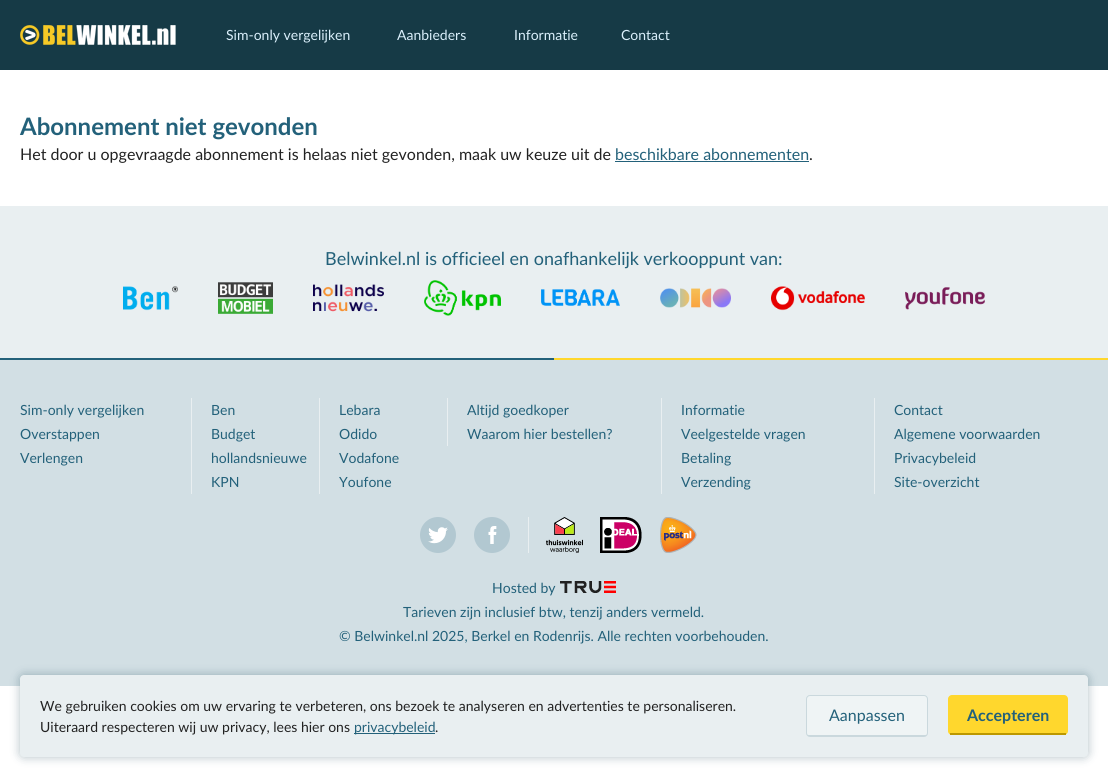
import math
import cairo


def use_color(cr, r, g, b):
  cr.set_source_rgb(r / 255, g / 255, b / 255)

def text(cr, x, y, s, family, size, color, bold=False, italic=False):
  cr.select_font_face(family, cairo.FONT_SLANT_ITALIC if italic else cairo.FONT_SLANT_NORMAL, cairo.FONT_WEIGHT_BOLD if bold else cairo.FONT_WEIGHT_NORMAL)
  cr.set_font_size(size)
  use_color(cr, *color)
  cr.move_to(x, y)
  cr.show_text(s)

def box(cr, x, y, w, h, *color):
  use_color(cr, *color)
  cr.rectangle(x, y, w, h)
  cr.fill()

def round_rect(cr, x, y, w, h, r):
  cr.new_sub_path()
  for i, (u, v) in enumerate([(x + w - r, y + h - r), (x + r, y + h - r), (x + r, y + r), (x + w - r, y + r)]):
    cr.arc(u, v, r, i * math.pi / 2, (i + 1) * math.pi / 2)
  cr.close_path()

def shadow(cr, x, y, w, h, r, blur, alpha):
  cr.push_group_with_content(cairo.CONTENT_ALPHA)
  cr.set_operator(cairo.OPERATOR_SOURCE)
  for i in range(15, -16, -2):
    e = blur * i / 6
    if min(w, h) + 2 * e > 0:
      cr.set_source_rgba(0, 0, 0, alpha * math.erfc((i - 1) / 8.5) / 2)
      round_rect(cr, x - e, y - e, w + 2 * e, h + 2 * e, max(0, min(r + e + blur * .6, min(w, h) / 2 + e)))
      cr.fill()
  cr.mask(cr.pop_group())

def picture(cr, path, x, y, w, h):
  cr.save()
  cr.set_source_surface(cairo.ImageSurface.create_from_png(path), x, y)
  cr.rectangle(x, y, w, h)
  cr.fill()
  cr.restore()

def draw(cr):
  use_color(cr, 255, 255, 255)
  cr.paint()
  box(cr, 0, 0, 1108, 70, 22, 58, 70)
  picture(cr, "img_01.png", 20, 25, 156, 20)
  box(cr, 615, 161, 194, 1, 35, 97, 122)
  box(cr, 0, 360, 1108, 326, 210, 223, 228)
  box(cr, 0, 206, 1108, 152, 233, 239, 241)
  picture(cr, "img_02.png", 123, 286, 55, 25)
  picture(cr, "img_03.png", 218, 282, 55, 32)
  picture(cr, "img_04.png", 313, 284, 71, 28)
  picture(cr, "img_05.png", 424, 280, 77, 36)
  picture(cr, "img_06.png", 541, 289, 79, 17)
  picture(cr, "img_07.png", 660, 288, 71, 20)
  picture(cr, "img_08.png", 771, 286, 94, 25)
  picture(cr, "img_09.png", 905, 287, 80, 23)
  box(cr, 0, 358, 554, 2, 35, 97, 122)
  box(cr, 554, 358, 554, 2, 255, 215, 45)
  box(cr, 191, 398, 1, 96, 233, 239, 241)
  box(cr, 319, 398, 1, 96, 233, 239, 241)
  box(cr, 447, 398, 1, 48, 233, 239, 241)
  box(cr, 661, 398, 1, 96, 233, 239, 241)
  box(cr, 874, 398, 1, 96, 233, 239, 241)
  use_color(cr, 178, 200, 209)
  cr.arc(438, 535, 18, 0, 2 * math.pi)
  cr.fill()
  picture(cr, "img_10.png", 428, 527, 20, 17)
  cr.arc(492, 535, 18, 0, 2 * math.pi)
  cr.fill()
  picture(cr, "img_11.png", 488, 526, 9, 18)
  box(cr, 528, 517, 1, 36, 233, 239, 241)
  picture(cr, "img_12.png", 546, 517, 37, 36)
  picture(cr, "img_13.png", 600, 517, 42, 36)
  picture(cr, "img_14.png", 660, 517, 37, 36)
  picture(cr, "img_15.png", 560, 581, 56, 12)
  use_color(cr, 0, 46, 64)
  shadow(cr, 20, 675, 1068, 82, 4, 5, 0.3)
  use_color(cr, 233, 239, 241)
  round_rect(cr, 20, 675, 1068, 82, 4)
  cr.fill()
  box(cr, 354, 733, 81, 1, 35, 97, 122)
  use_color(cr, 239, 244, 245)
  cr.new_path()
  cr.move_to(810, 696)
  cr.line_to(924, 696)
  cr.curve_to(926, 696, 927, 697, 927, 699)
  cr.line_to(927, 733)
  cr.curve_to(927, 734, 926, 735, 924, 735)
  cr.line_to(810, 735)
  cr.curve_to(808, 735, 807, 734, 807, 733)
  cr.line_to(807, 699)
  cr.curve_to(807, 697, 808, 696, 810, 696)
  cr.close_path()
  cr.fill()
  round_rect(cr, 806.5, 695.5, 121, 41, 3.5)
  use_color(cr, 202, 216, 221)
  cr.set_line_width(1)
  cr.stroke()
  box(cr, 808, 735, 118, 1, 202, 216, 221)
  use_color(cr, 255, 215, 45)
  round_rect(cr, 948, 695, 120, 40, 4)
  cr.fill()
  box(cr, 950, 733, 116, 2, 188, 152, 0)
  text(cr, 226, 40, "Sim-only vergelijken", "Lato", 14, (218, 239, 251))
  text(cr, 397, 40, "Aanbieders", "Lato", 14, (218, 239, 251))
  text(cr, 514, 40, "Informatie", "Lato", 14, (218, 239, 251))
  text(cr, 621, 40, "Contact", "Lato", 14, (218, 239, 251))
  text(cr, 20, 135, "Abonnement niet gevonden", "Lato", 24, (35, 97, 122), bold=True)
  text(cr, 20, 160, "Het door u opgevraagde abonnement is helaas niet gevonden, maak uw keuze uit de", "Lato", 16, (34, 34, 34))
  text(cr, 615, 160, "beschikbare abonnementen", "Lato", 16, (35, 97, 122))
  text(cr, 809, 160, ".", "Lato", 16, (34, 34, 34))
  text(cr, 325, 265, "Belwinkel.nl is officieel en onafhankelijk verkooppunt van:", "Lato", 18, (35, 97, 122))
  text(cr, 20, 415, "Sim-only vergelijken", "Lato", 14, (35, 97, 122))
  text(cr, 20, 439, "Overstappen", "Lato", 14, (35, 97, 122))
  text(cr, 20, 463, "Verlengen", "Lato", 14, (35, 97, 122))
  text(cr, 211, 415, "Ben", "Lato", 14, (35, 97, 122))
  text(cr, 211, 439, "Budget", "Lato", 14, (35, 97, 122))
  text(cr, 211, 463, "hollandsnieuwe", "Lato", 14, (35, 97, 122))
  text(cr, 211, 487, "KPN", "Lato", 14, (35, 97, 122))
  text(cr, 339, 415, "Lebara", "Lato", 14, (35, 97, 122))
  text(cr, 339, 439, "Odido", "Lato", 14, (35, 97, 122))
  text(cr, 339, 463, "Vodafone", "Lato", 14, (35, 97, 122))
  text(cr, 339, 487, "Youfone", "Lato", 14, (35, 97, 122))
  text(cr, 467, 415, "Altijd goedkoper", "Lato", 14, (35, 97, 122))
  text(cr, 467, 439, "Waarom hier bestellen?", "Lato", 14, (35, 97, 122))
  text(cr, 681, 415, "Informatie", "Lato", 14, (35, 97, 122))
  text(cr, 681, 439, "Veelgestelde vragen", "Lato", 14, (35, 97, 122))
  text(cr, 681, 463, "Betaling", "Lato", 14, (35, 97, 122))
  text(cr, 681, 487, "Verzending", "Lato", 14, (35, 97, 122))
  text(cr, 894, 415, "Contact", "Lato", 14, (35, 97, 122))
  text(cr, 894, 439, "Algemene voorwaarden", "Lato", 14, (35, 97, 122))
  text(cr, 894, 463, "Privacybeleid", "Lato", 14, (35, 97, 122))
  text(cr, 894, 487, "Site-overzicht", "Lato", 14, (35, 97, 122))
  text(cr, 492, 593, "Hosted by", "Lato", 14, (35, 97, 122))
  text(cr, 403, 617, "Tarieven zijn inclusief btw, tenzij anders vermeld.", "Lato", 14, (35, 97, 122))
  text(cr, 339, 641, "© Belwinkel.nl 2025, Berkel en Rodenrijs. Alle rechten voorbehouden.", "Lato", 14, (35, 97, 122))
  text(cr, 40, 711, "We gebruiken cookies om uw ervaring te verbeteren, ons bezoek te analyseren en advertenties te personaliseren.", "Lato", 14, (34, 34, 34))
  text(cr, 40, 732, "Uiteraard respecteren wij uw privacy, lees hier ons", "Lato", 14, (34, 34, 34))
  text(cr, 354, 732, "privacybeleid", "Lato", 14, (35, 97, 122))
  text(cr, 435, 732, ".", "Lato", 14, (34, 34, 34))
  text(cr, 829, 721, "Aanpassen", "Lato", 16, (35, 97, 122))
  text(cr, 967, 721, "Accepteren", "Lato", 16, (35, 97, 122), bold=True)


surface = cairo.ImageSurface(cairo.FORMAT_RGB24, 1108, 777)
cr = cairo.Context(surface)
options = cairo.FontOptions()
options.set_hint_metrics(cairo.HINT_METRICS_OFF)
options.set_hint_style(cairo.HINT_STYLE_NONE)
cr.set_font_options(options)
cr.set_miter_limit(4)
draw(cr)
surface.write_to_png("out.png")
